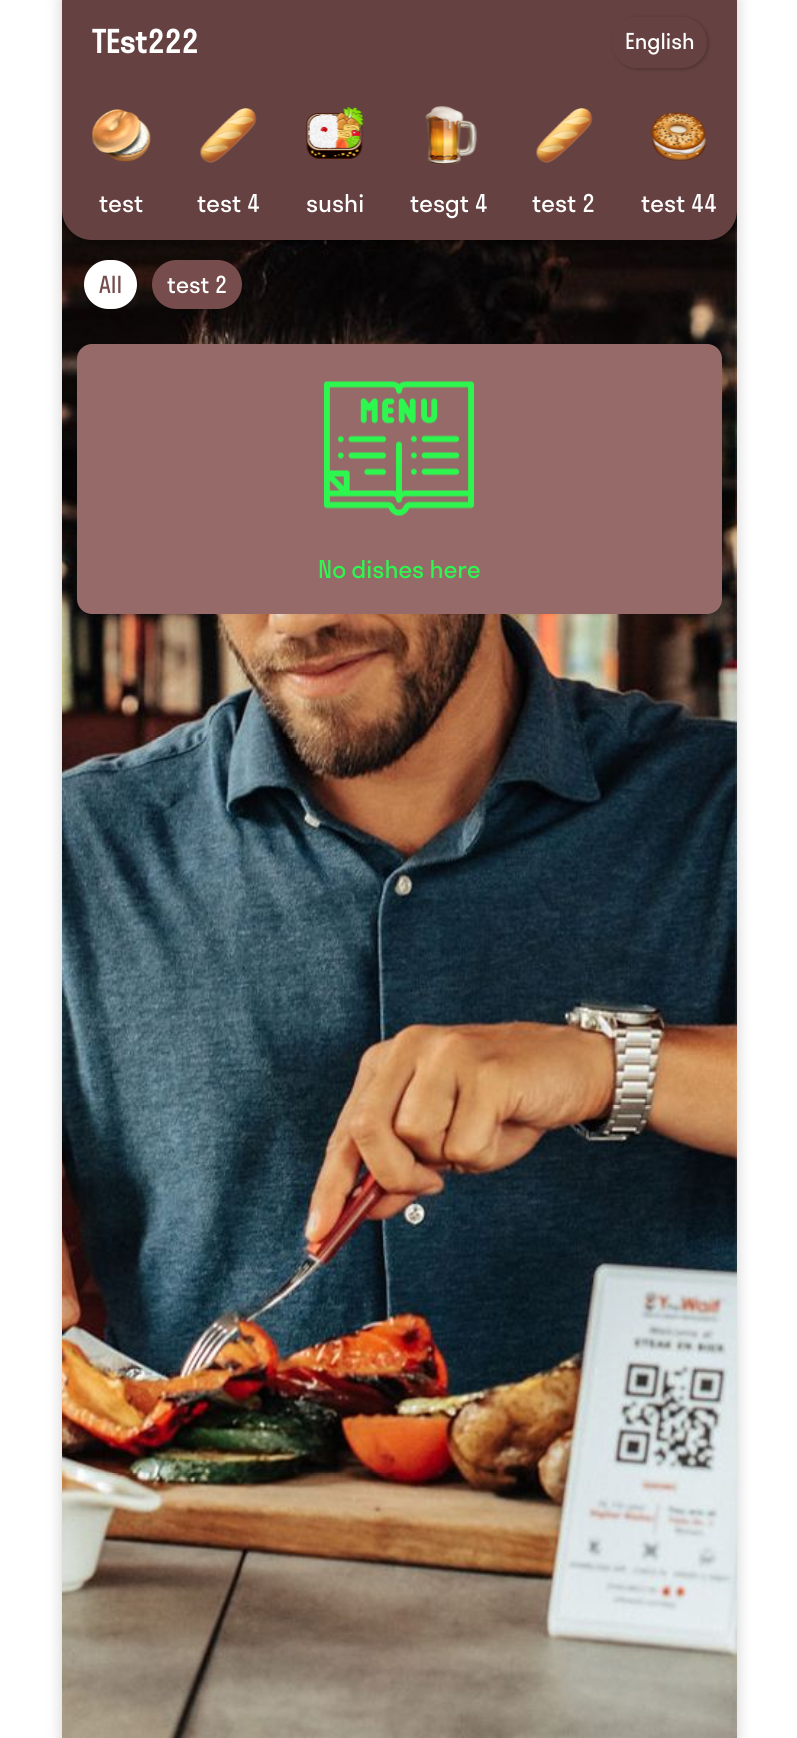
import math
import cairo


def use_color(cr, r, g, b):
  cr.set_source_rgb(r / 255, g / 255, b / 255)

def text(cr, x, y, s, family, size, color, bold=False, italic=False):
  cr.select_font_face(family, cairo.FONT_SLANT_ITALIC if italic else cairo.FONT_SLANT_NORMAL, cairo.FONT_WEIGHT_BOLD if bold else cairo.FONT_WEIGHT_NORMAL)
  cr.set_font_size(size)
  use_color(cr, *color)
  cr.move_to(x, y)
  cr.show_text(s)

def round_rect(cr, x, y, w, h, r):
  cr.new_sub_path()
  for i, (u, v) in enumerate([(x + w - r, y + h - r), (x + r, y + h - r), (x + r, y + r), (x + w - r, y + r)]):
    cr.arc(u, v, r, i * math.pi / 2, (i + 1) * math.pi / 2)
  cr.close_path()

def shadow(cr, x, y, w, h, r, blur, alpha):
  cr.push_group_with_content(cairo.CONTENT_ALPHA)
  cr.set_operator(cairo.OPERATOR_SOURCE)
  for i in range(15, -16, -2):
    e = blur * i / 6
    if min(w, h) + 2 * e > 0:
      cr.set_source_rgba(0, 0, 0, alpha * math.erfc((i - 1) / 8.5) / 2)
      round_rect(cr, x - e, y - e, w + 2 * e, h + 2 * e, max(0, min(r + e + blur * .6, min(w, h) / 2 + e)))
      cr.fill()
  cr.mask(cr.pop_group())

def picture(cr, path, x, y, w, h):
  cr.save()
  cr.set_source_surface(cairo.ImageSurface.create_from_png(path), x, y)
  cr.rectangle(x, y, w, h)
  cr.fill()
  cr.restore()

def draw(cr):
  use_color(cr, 255, 255, 255)
  cr.paint()
  use_color(cr, 0, 0, 0)
  shadow(cr, 62, 0, 675, 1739, 0, 7.5, 0.2)
  picture(cr, "img_01.png", 62, 210, 675, 1528)
  cr.save()
  cr.rectangle(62, 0, 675, 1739)
  cr.clip()
  shadow(cr, 62, 3, 675, 240, 30, 4.5, 0.7)
  cr.restore()
  use_color(cr, 102, 65, 65)
  cr.new_path()
  cr.move_to(62, 0)
  cr.line_to(737, 0)
  cr.line_to(737, 210)
  cr.curve_to(737, 226.5, 723.5, 240, 707, 240)
  cr.line_to(92, 240)
  cr.curve_to(75.5, 240, 62, 226.5, 62, 210)
  cr.close_path()
  cr.fill()
  cr.save()
  cr.set_fill_rule(cairo.FILL_RULE_EVEN_ODD)
  cr.new_path()
  cr.move_to(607, 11)
  cr.line_to(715, 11)
  cr.line_to(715, 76)
  cr.line_to(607, 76)
  cr.close_path()
  cr.move_to(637.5, 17)
  cr.line_to(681.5, 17)
  cr.curve_to(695.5, 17, 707, 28.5, 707, 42.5)
  cr.curve_to(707, 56.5, 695.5, 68, 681.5, 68)
  cr.line_to(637.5, 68)
  cr.curve_to(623.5, 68, 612, 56.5, 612, 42.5)
  cr.curve_to(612, 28.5, 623.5, 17, 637.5, 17)
  cr.close_path()
  cr.clip()
  use_color(cr, 0, 0, 0)
  shadow(cr, 614, 18, 94, 51, 25.5, 2, 0.3)
  cr.restore()
  picture(cr, "img_02.png", 92, 109, 59, 53)
  picture(cr, "img_03.png", 200, 108, 57, 55)
  picture(cr, "img_04.png", 306, 106, 58, 53)
  picture(cr, "img_05.png", 425, 105, 53, 60)
  picture(cr, "img_03.png", 536, 108, 57, 55)
  picture(cr, "img_06.png", 650, 112, 57, 49)
  use_color(cr, 0, 0, 0)
  shadow(cr, 86, 261, 52, 50, 25, 1, 0.2)
  use_color(cr, 255, 255, 255)
  round_rect(cr, 84, 260, 53, 49, 24.5)
  cr.fill()
  use_color(cr, 0, 0, 0)
  shadow(cr, 153, 261, 90, 50, 25, 1, 0.2)
  use_color(cr, 118, 76, 76)
  round_rect(cr, 152, 260, 90, 49, 24.5)
  cr.fill()
  use_color(cr, 151, 106, 106)
  round_rect(cr, 77, 344, 645, 270, 15)
  cr.fill()
  picture(cr, "img_07.png", 324, 381, 150, 135)
  cr.save()
  cr.rectangle(92, 23, 505, 39)
  cr.clip()
  text(cr, 92, 53, "TEst222", "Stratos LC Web", 31, (255, 255, 255), bold=True)
  cr.restore()
  text(cr, 625, 49, "English", "Stratos LC Web", 21.5, (255, 255, 255))
  text(cr, 99, 212, "test", "Stratos LC Web", 24, (255, 255, 255))
  text(cr, 197, 212, "test 4", "Stratos LC Web", 24, (255, 255, 255))
  text(cr, 306, 212, "sushi", "Stratos LC Web", 24, (255, 255, 255))
  text(cr, 410, 212, "tesgt 4", "Stratos LC Web", 24, (255, 255, 255))
  text(cr, 532, 212, "test 2", "Stratos LC Web", 24, (255, 255, 255))
  text(cr, 641, 212, "test 44", "Stratos LC Web", 24, (255, 255, 255))
  text(cr, 99, 293, "All", "Stratos LC Web", 23, (118, 76, 76))
  text(cr, 167, 293, "test 2", "Stratos LC Web", 23, (255, 255, 255))
  text(cr, 318, 578, "No dishes here", "Stratos LC Web", 24, (45, 247, 79))


surface = cairo.ImageSurface(cairo.FORMAT_RGB24, 797, 1738)
cr = cairo.Context(surface)
options = cairo.FontOptions()
options.set_hint_metrics(cairo.HINT_METRICS_OFF)
options.set_hint_style(cairo.HINT_STYLE_NONE)
cr.set_font_options(options)
cr.set_miter_limit(4)
draw(cr)
surface.write_to_png("out.png")
